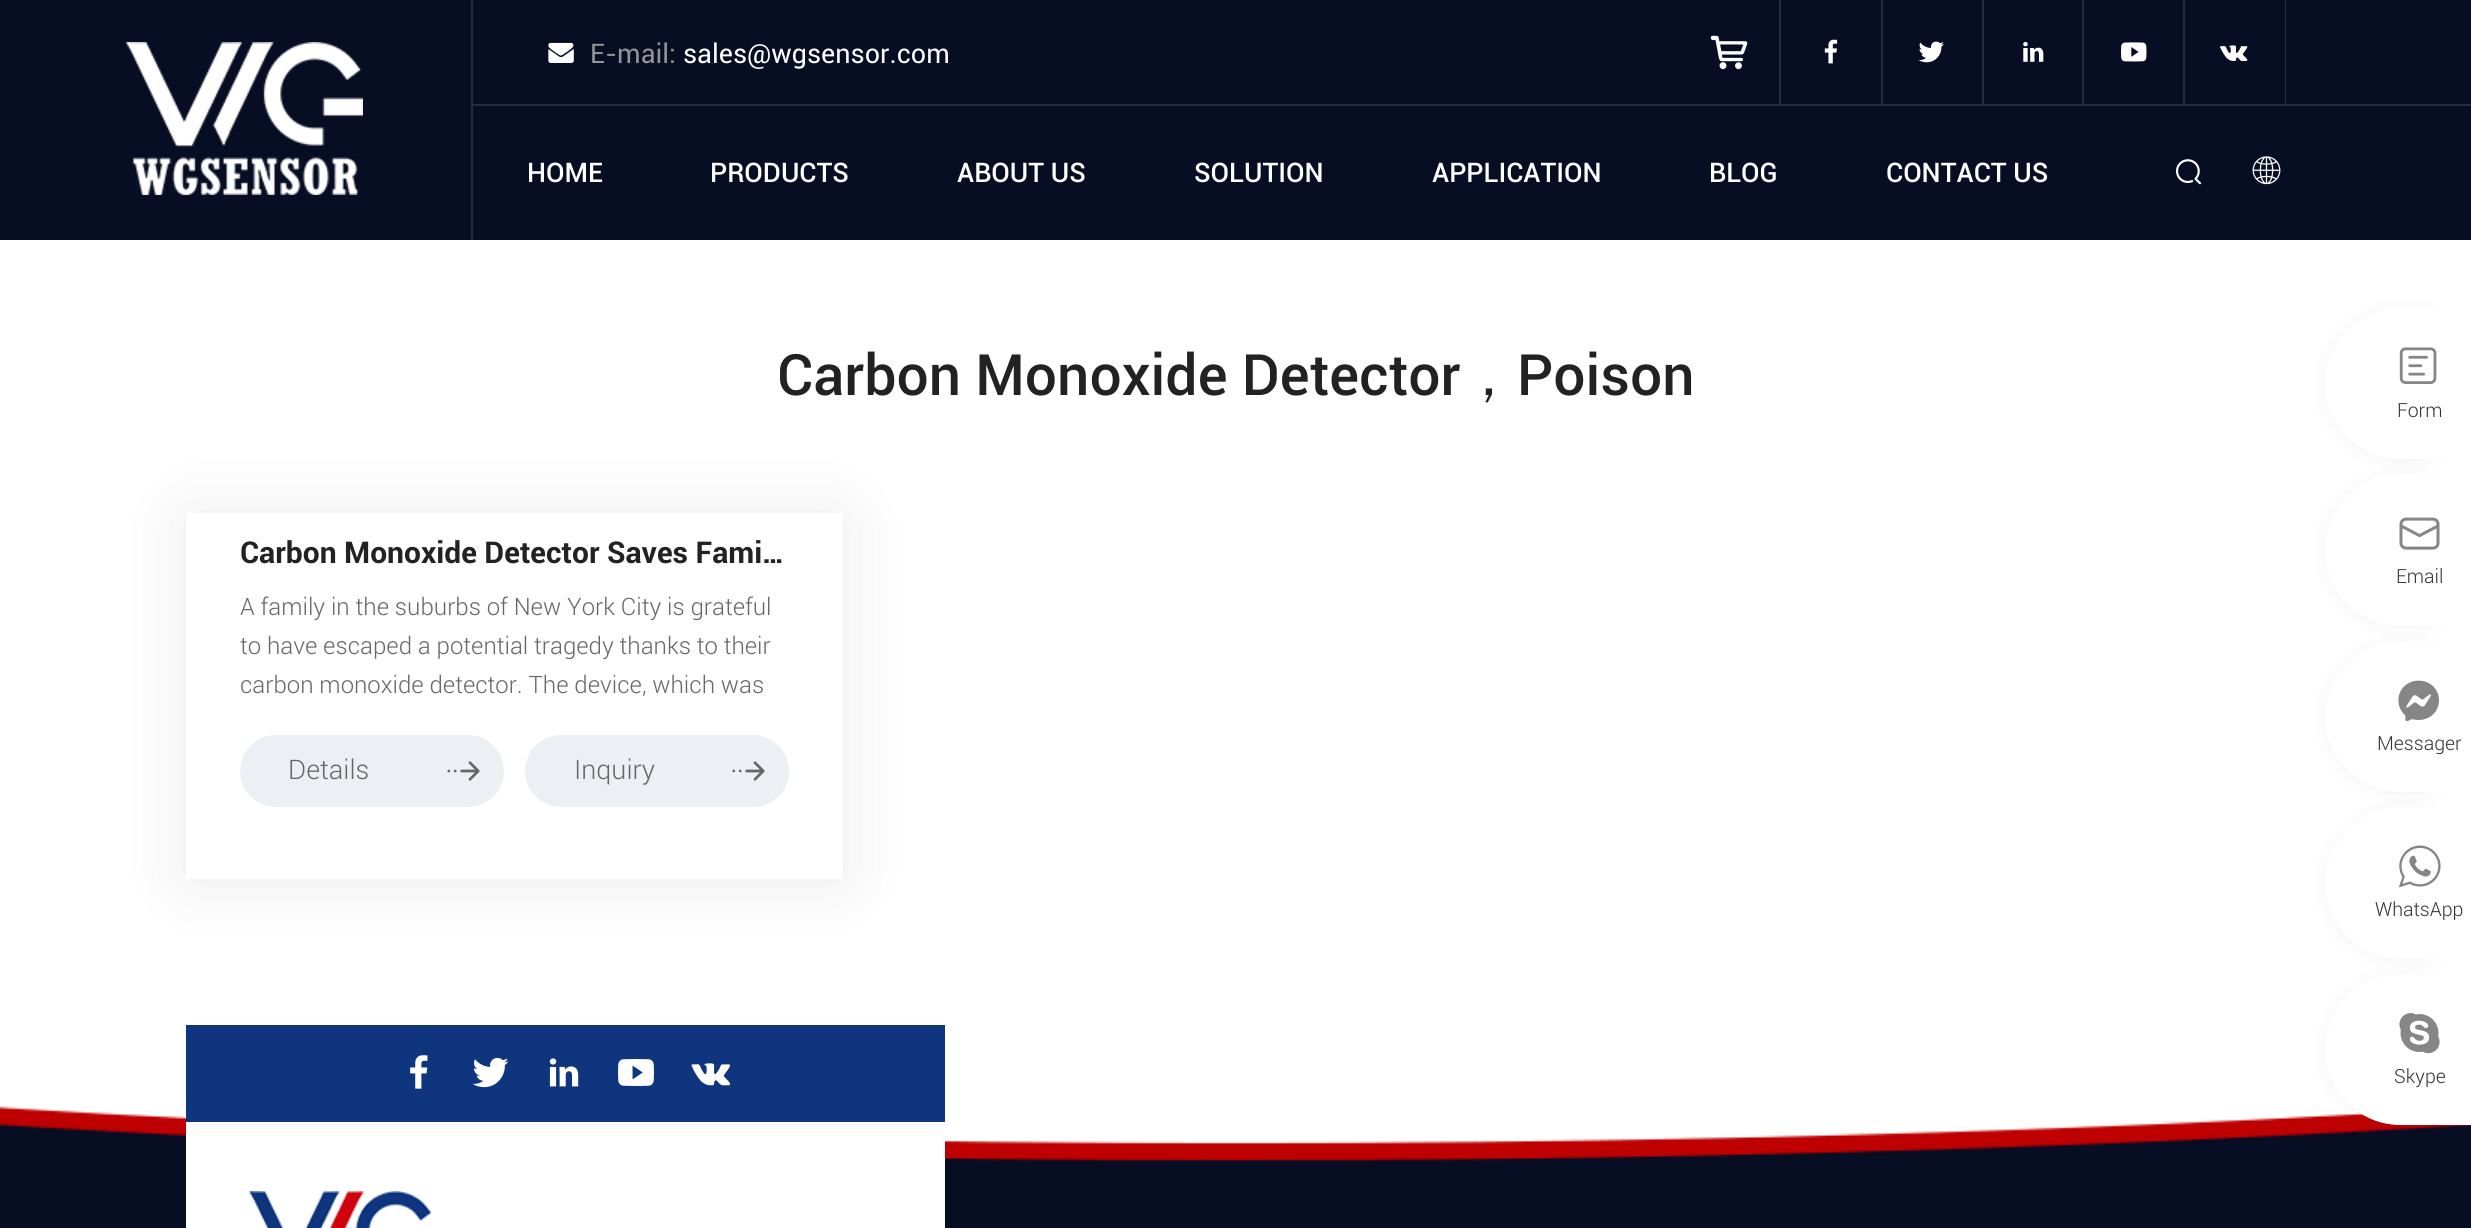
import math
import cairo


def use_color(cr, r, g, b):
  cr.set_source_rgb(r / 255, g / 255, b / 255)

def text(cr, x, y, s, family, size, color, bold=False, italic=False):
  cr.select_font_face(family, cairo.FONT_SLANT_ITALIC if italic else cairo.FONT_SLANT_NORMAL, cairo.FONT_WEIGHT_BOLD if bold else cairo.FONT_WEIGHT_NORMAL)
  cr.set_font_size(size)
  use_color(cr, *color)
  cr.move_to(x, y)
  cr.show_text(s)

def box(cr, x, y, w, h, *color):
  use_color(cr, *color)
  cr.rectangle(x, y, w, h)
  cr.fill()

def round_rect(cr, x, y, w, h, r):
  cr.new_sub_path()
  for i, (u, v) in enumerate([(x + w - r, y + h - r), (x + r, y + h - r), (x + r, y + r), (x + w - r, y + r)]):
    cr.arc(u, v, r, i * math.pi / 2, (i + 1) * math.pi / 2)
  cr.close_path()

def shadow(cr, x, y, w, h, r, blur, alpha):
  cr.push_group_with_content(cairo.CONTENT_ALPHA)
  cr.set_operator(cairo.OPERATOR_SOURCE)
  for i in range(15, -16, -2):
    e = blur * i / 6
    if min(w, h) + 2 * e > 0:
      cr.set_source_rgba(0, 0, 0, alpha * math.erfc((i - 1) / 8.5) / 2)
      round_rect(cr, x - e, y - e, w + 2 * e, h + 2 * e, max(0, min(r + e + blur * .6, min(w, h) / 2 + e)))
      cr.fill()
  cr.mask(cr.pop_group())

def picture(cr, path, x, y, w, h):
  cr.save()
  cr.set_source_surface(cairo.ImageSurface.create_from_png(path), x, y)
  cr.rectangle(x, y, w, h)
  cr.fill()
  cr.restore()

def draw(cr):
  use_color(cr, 255, 255, 255)
  cr.paint()
  box(cr, 0, 0, 2471, 240, 7, 13, 34)
  picture(cr, "img_01.png", 126, 42, 237, 153)
  box(cr, 471, 0, 2, 240, 39, 44, 61)
  picture(cr, "img_02.png", 548, 42, 26, 21)
  box(cr, 1779, 0, 2, 104, 39, 44, 61)
  picture(cr, "img_03.png", 1710, 35, 38, 35)
  box(cr, 1881, 0, 2, 104, 39, 44, 61)
  picture(cr, "img_04.png", 1824, 39, 14, 25)
  box(cr, 1982, 0, 2, 104, 39, 44, 61)
  picture(cr, "img_05.png", 1918, 41, 26, 22)
  box(cr, 2082, 0, 2, 104, 39, 44, 61)
  picture(cr, "img_06.png", 2023, 42, 21, 20)
  box(cr, 2183, 0, 2, 104, 39, 44, 61)
  picture(cr, "img_07.png", 2121, 42, 26, 20)
  box(cr, 2285, 0, 1, 104, 39, 44, 61)
  picture(cr, "img_08.png", 2220, 45, 28, 16)
  picture(cr, "img_09.png", 2175, 159, 27, 26)
  picture(cr, "img_10.png", 2252, 156, 29, 29)
  box(cr, 473, 104, 1998, 2, 39, 44, 61)
  cr.save()
  cr.set_fill_rule(cairo.FILL_RULE_EVEN_ODD)
  cr.new_path()
  cr.move_to(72, 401)
  cr.line_to(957, 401)
  cr.line_to(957, 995)
  cr.line_to(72, 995)
  cr.close_path()
  cr.move_to(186, 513)
  cr.line_to(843, 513)
  cr.line_to(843, 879)
  cr.line_to(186, 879)
  cr.close_path()
  cr.clip()
  use_color(cr, 0, 0, 0)
  shadow(cr, 186, 515, 657, 366, 0, 37.5, 0.08)
  cr.restore()
  use_color(cr, 236, 240, 244)
  round_rect(cr, 240, 735, 264, 72, 36)
  cr.fill()
  picture(cr, "img_11.png", 447, 761, 33, 20)
  round_rect(cr, 525, 735, 264, 72, 36)
  cr.fill()
  picture(cr, "img_11.png", 732, 761, 33, 20)
  picture(cr, "img_12.png", 0, 1106, 2471, 122)
  box(cr, 186, 1025, 759, 97, 15, 53, 126)
  picture(cr, "img_13.png", 410, 1055, 18, 34)
  picture(cr, "img_14.png", 472, 1057, 37, 31)
  picture(cr, "img_15.png", 549, 1058, 30, 29)
  picture(cr, "img_16.png", 618, 1059, 36, 27)
  picture(cr, "img_17.png", 691, 1063, 39, 23)
  box(cr, 186, 1122, 759, 106, 255, 255, 255)
  picture(cr, "img_18.png", 249, 1191, 183, 37)
  use_color(cr, 0, 0, 0)
  shadow(cr, 2325, 309, 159, 152, 76, 7.5, 0.05)
  use_color(cr, 255, 255, 255)
  cr.new_path()
  cr.move_to(2400.5, 308)
  cr.line_to(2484, 308)
  cr.line_to(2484, 459)
  cr.line_to(2400.5, 459)
  cr.curve_to(2359, 459, 2325, 425, 2325, 383.5)
  cr.curve_to(2325, 342, 2359, 308, 2400.5, 308)
  cr.close_path()
  cr.fill()
  picture(cr, "img_19.png", 2399, 347, 38, 37)
  use_color(cr, 0, 0, 0)
  shadow(cr, 2325, 476, 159, 151, 75.5, 7.5, 0.05)
  use_color(cr, 255, 255, 255)
  cr.new_path()
  cr.move_to(2401, 474)
  cr.line_to(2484, 474)
  cr.line_to(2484, 626)
  cr.line_to(2401, 626)
  cr.curve_to(2359, 626, 2325, 592, 2325, 550)
  cr.curve_to(2325, 508, 2359, 474, 2401, 474)
  cr.close_path()
  cr.fill()
  picture(cr, "img_20.png", 2399, 517, 41, 33)
  use_color(cr, 0, 0, 0)
  shadow(cr, 2325, 642, 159, 152, 76, 7.5, 0.05)
  use_color(cr, 255, 255, 255)
  cr.new_path()
  cr.move_to(2400.5, 641)
  cr.line_to(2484, 641)
  cr.line_to(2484, 792)
  cr.line_to(2400.5, 792)
  cr.curve_to(2359, 792, 2325, 758, 2325, 716.5)
  cr.curve_to(2325, 675, 2359, 641, 2400.5, 641)
  cr.close_path()
  cr.fill()
  picture(cr, "img_21.png", 2398, 680, 41, 42)
  use_color(cr, 0, 0, 0)
  shadow(cr, 2325, 809, 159, 151, 75.5, 7.5, 0.05)
  use_color(cr, 255, 255, 255)
  cr.new_path()
  cr.move_to(2401, 807)
  cr.line_to(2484, 807)
  cr.line_to(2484, 959)
  cr.line_to(2401, 959)
  cr.curve_to(2359, 959, 2325, 925, 2325, 883)
  cr.curve_to(2325, 841, 2359, 807, 2401, 807)
  cr.close_path()
  cr.fill()
  picture(cr, "img_22.png", 2398, 845, 43, 43)
  use_color(cr, 0, 0, 0)
  shadow(cr, 2325, 975, 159, 152, 76, 7.5, 0.05)
  use_color(cr, 255, 255, 255)
  cr.new_path()
  cr.move_to(2400.5, 974)
  cr.line_to(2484, 974)
  cr.line_to(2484, 1125)
  cr.line_to(2400.5, 1125)
  cr.curve_to(2359, 1125, 2325, 1091, 2325, 1049.5)
  cr.curve_to(2325, 1008, 2359, 974, 2400.5, 974)
  cr.close_path()
  cr.fill()
  picture(cr, "img_23.png", 2399, 1013, 41, 41)
  text(cr, 590, 63, "E-mail:", "Roboto", 27, (148, 148, 148))
  text(cr, 683, 63, "sales@wgsensor.com", "Roboto", 27, (255, 255, 255))
  text(cr, 527, 182, "HOME", "Roboto Medium", 27, (255, 255, 255))
  text(cr, 710, 182, "PRODUCTS", "Roboto Medium", 27, (255, 255, 255))
  text(cr, 957, 182, "ABOUT US", "Roboto Medium", 27, (255, 255, 255))
  text(cr, 1194, 182, "SOLUTION", "Roboto Medium", 27, (255, 255, 255))
  text(cr, 1432, 182, "APPLICATION", "Roboto Medium", 27, (255, 255, 255))
  text(cr, 1709, 182, "BLOG", "Roboto Medium", 27, (255, 255, 255))
  text(cr, 1886, 182, "CONTACT US", "Roboto Medium", 27, (255, 255, 255))
  text(cr, 777, 395, "Carbon Monoxide Detector", "Roboto Medium", 57, (34, 34, 34))
  text(cr, 1460, 395, "，", "WenQuanYi Zen Hei Medium", 57, (34, 34, 34))
  text(cr, 1517, 395, "Poison", "Roboto Medium", 57, (34, 34, 34))
  text(cr, 240, 563, "Carbon Monoxide Detector Saves Fami…", "Roboto", 30, (34, 34, 34), bold=True)
  text(cr, 240, 615, "A family in the suburbs of New York City is grateful", "Roboto Light", 24, (102, 102, 102))
  text(cr, 240, 654, "to have escaped a potential tragedy thanks to their", "Roboto Light", 24, (102, 102, 102))
  text(cr, 240, 693, "carbon monoxide detector. The device, which was", "Roboto Light", 24, (102, 102, 102))
  text(cr, 288, 779, "Details", "Roboto Light", 27, (102, 102, 102))
  text(cr, 574, 779, "Inquiry", "Roboto Light", 27, (102, 102, 102))
  text(cr, 2397, 417, "Form", "Roboto Light", 19.5, (51, 51, 51))
  text(cr, 2396, 583, "Email", "Roboto Light", 19.5, (51, 51, 51))
  text(cr, 2377, 750, "Messager", "Roboto Light", 19.5, (51, 51, 51))
  text(cr, 2375, 916, "WhatsApp", "Roboto Light", 19.5, (51, 51, 51))
  text(cr, 2394, 1083, "Skype", "Roboto Light", 19.5, (51, 51, 51))


surface = cairo.ImageSurface(cairo.FORMAT_RGB24, 2471, 1228)
cr = cairo.Context(surface)
options = cairo.FontOptions()
options.set_hint_metrics(cairo.HINT_METRICS_OFF)
options.set_hint_style(cairo.HINT_STYLE_NONE)
cr.set_font_options(options)
cr.set_miter_limit(4)
draw(cr)
surface.write_to_png("out.png")
